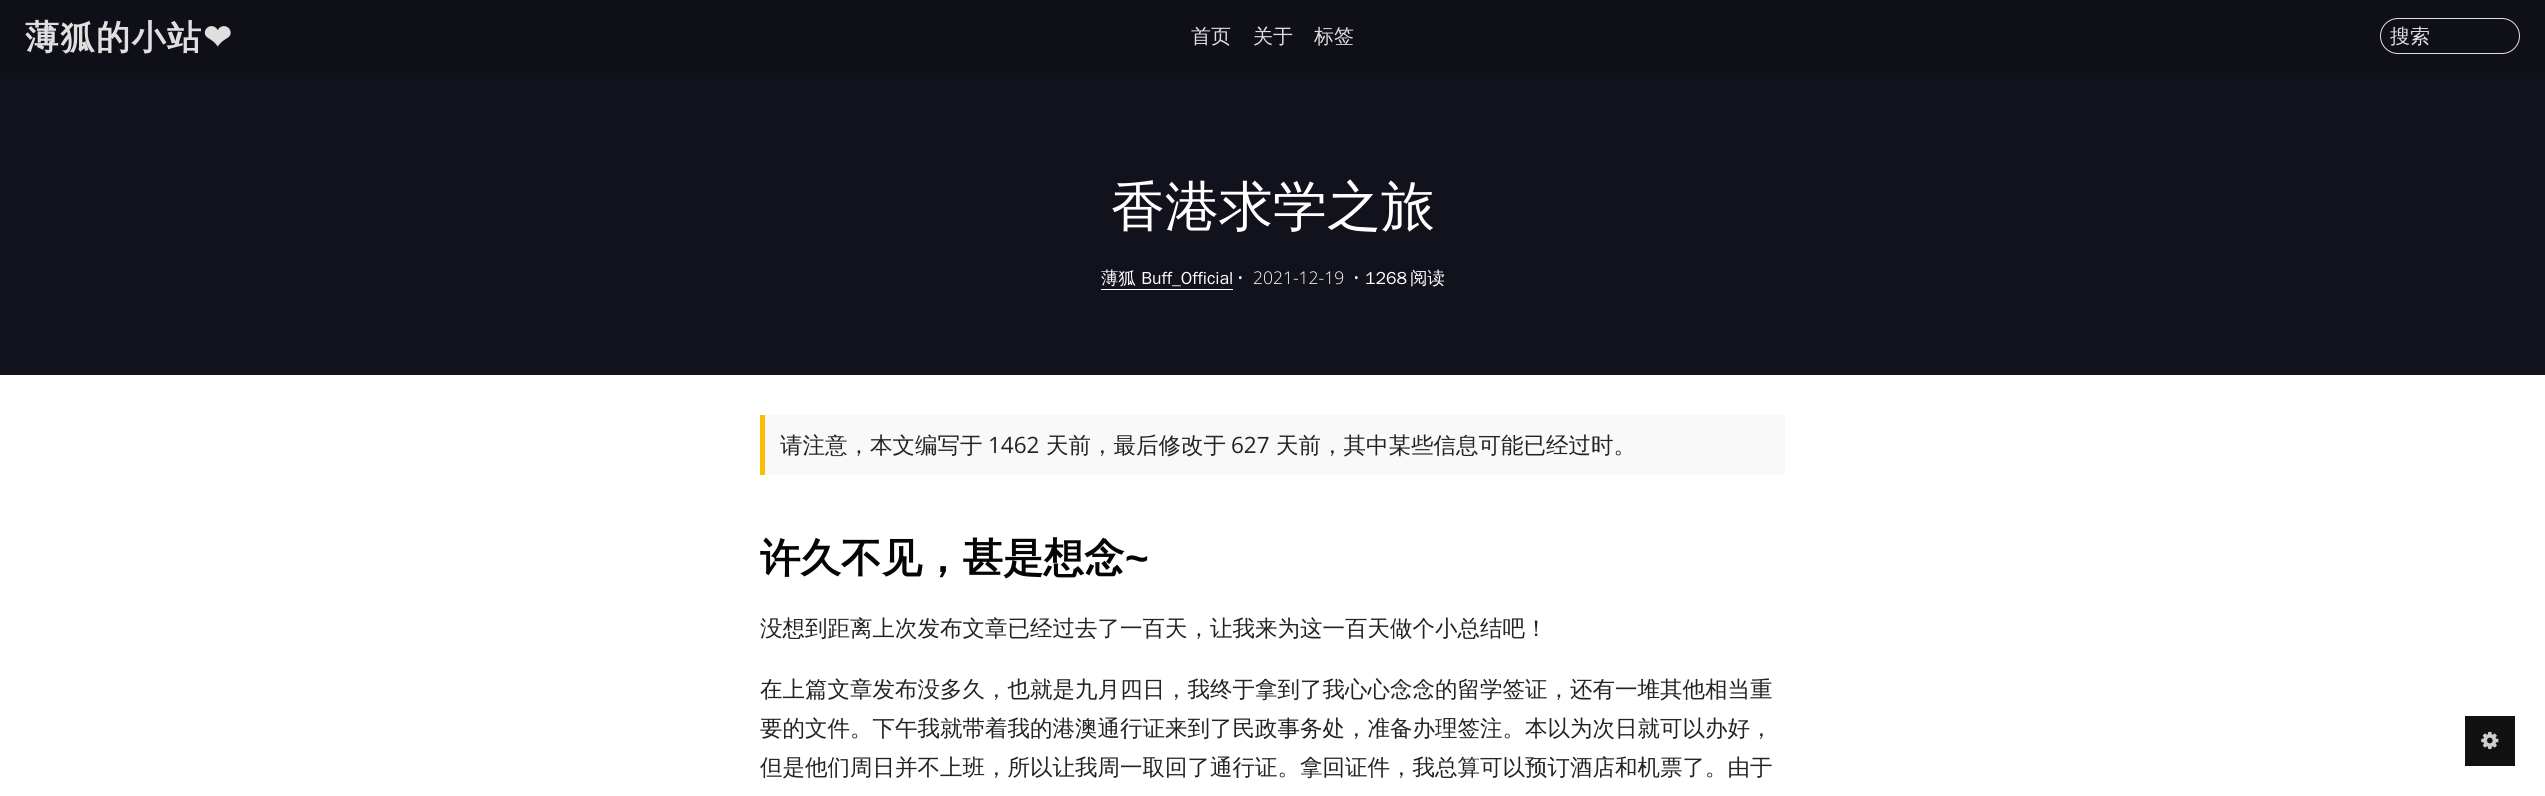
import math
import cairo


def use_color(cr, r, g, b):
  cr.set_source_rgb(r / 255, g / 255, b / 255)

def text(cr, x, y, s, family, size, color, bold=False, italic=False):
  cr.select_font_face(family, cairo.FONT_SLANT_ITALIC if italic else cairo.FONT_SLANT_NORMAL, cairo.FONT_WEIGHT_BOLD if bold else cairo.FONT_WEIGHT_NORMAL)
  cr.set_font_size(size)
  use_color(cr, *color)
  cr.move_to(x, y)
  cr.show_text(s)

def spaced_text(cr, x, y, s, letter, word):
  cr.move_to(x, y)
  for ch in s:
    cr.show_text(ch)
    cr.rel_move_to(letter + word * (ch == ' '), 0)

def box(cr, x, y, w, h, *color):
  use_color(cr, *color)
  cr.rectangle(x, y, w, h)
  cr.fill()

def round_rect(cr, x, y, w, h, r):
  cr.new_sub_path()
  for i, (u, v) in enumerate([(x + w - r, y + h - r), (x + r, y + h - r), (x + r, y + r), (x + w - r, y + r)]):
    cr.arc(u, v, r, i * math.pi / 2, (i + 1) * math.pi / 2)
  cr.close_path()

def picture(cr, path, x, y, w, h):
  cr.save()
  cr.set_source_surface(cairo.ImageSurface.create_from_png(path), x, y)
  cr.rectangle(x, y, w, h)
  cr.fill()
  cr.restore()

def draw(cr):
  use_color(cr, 255, 255, 255)
  cr.paint()
  box(cr, 0, 0, 2545, 73, 15, 15, 24)
  round_rect(cr, 2380.5, 18.5, 139, 35, 17.5)
  use_color(cr, 223, 223, 223)
  cr.set_line_width(1)
  cr.stroke()
  box(cr, 0, 73, 2545, 302, 18, 18, 28)
  box(cr, 1101, 289, 132, 1, 255, 255, 255)
  box(cr, 765, 415, 1020, 60, 249, 249, 249)
  box(cr, 760, 415, 5, 60, 251, 188, 5)
  box(cr, 2465, 716, 50, 50, 17, 17, 17)
  picture(cr, "img_01.png", 2481, 731, 18, 19)
  cr.select_font_face("WenQuanYi Zen Hei", cairo.FONT_SLANT_NORMAL, cairo.FONT_WEIGHT_BOLD)
  cr.set_font_size(34)
  use_color(cr, 223, 223, 223)
  spaced_text(cr, 25, 49, "薄狐的小站", 1.5, 0)
  cr.select_font_face("DejaVu Sans", cairo.FONT_SLANT_NORMAL, cairo.FONT_WEIGHT_BOLD)
  spaced_text(cr, 203, 49, "❤", 1.5, 0)
  text(cr, 1191, 43, "首页", "WenQuanYi Zen Hei Medium", 20, (223, 223, 223))
  text(cr, 1253, 43, "关于", "WenQuanYi Zen Hei Medium", 20, (223, 223, 223))
  text(cr, 1314, 43, "标签", "WenQuanYi Zen Hei Medium", 20, (223, 223, 223))
  text(cr, 2390, 43, "搜索", "WenQuanYi Zen Hei Medium", 20, (223, 223, 223))
  text(cr, 1111, 225, "香港求学之旅", "WenQuanYi Zen Hei Medium", 54, (255, 255, 255))
  text(cr, 1101, 284, "薄狐 Buff_Official", "WenQuanYi Zen Hei Medium", 17.5, (255, 255, 255))
  text(cr, 1237, 284, "•", "Open Sans Light", 17.5, (255, 255, 255))
  text(cr, 1253, 284, "2021-12-19", "Open Sans Light", 17.5, (255, 255, 255))
  text(cr, 1353, 284, "•", "Open Sans Light", 17.5, (255, 255, 255))
  text(cr, 1365, 284, "1268", "WenQuanYi Zen Hei Medium", 17.5, (255, 255, 255))
  text(cr, 1410, 284, "阅读", "WenQuanYi Zen Hei Medium", 17.5, (255, 255, 255))
  text(cr, 780, 453, "请注意，本文编写于", "WenQuanYi Zen Hei Medium", 22.5, (35, 35, 35))
  text(cr, 988, 453, "1462", "Open Sans", 22.5, (35, 35, 35))
  text(cr, 1046, 453, "天前，最后修改于", "WenQuanYi Zen Hei Medium", 22.5, (35, 35, 35))
  text(cr, 1231, 453, "627", "Open Sans", 22.5, (35, 35, 35))
  text(cr, 1276, 453, "天前，其中某些信息可能已经过时。", "WenQuanYi Zen Hei Medium", 22.5, (35, 35, 35))
  text(cr, 760, 572, "许久不见，甚是想念", "WenQuanYi Zen Hei", 40.5, (5, 5, 5), bold=True)
  text(cr, 1125, 572, "~", "Liberation Sans", 40.5, (5, 5, 5), bold=True)
  text(cr, 760, 636, "没想到距离上次发布文章已经过去了一百天，让我来为这一百天做个小总结吧！", "WenQuanYi Zen Hei Medium", 22.5, (35, 35, 35))
  text(cr, 760, 697, "在上篇文章发布没多久，也就是九月四日，我终于拿到了我心心念念的留学签证，还有一堆其他相当重", "WenQuanYi Zen Hei Medium", 22.5, (35, 35, 35))
  text(cr, 760, 736, "要的文件。下午我就带着我的港澳通行证来到了民政事务处，准备办理签注。本以为次日就可以办好，", "WenQuanYi Zen Hei Medium", 22.5, (35, 35, 35))
  text(cr, 760, 775, "但是他们周日并不上班，所以让我周一取回了通行证。拿回证件，我总算可以预订酒店和机票了。由于", "WenQuanYi Zen Hei Medium", 22.5, (35, 35, 35))


surface = cairo.ImageSurface(cairo.FORMAT_RGB24, 2545, 796)
cr = cairo.Context(surface)
options = cairo.FontOptions()
options.set_hint_metrics(cairo.HINT_METRICS_OFF)
options.set_hint_style(cairo.HINT_STYLE_NONE)
cr.set_font_options(options)
cr.set_miter_limit(4)
draw(cr)
surface.write_to_png("out.png")
